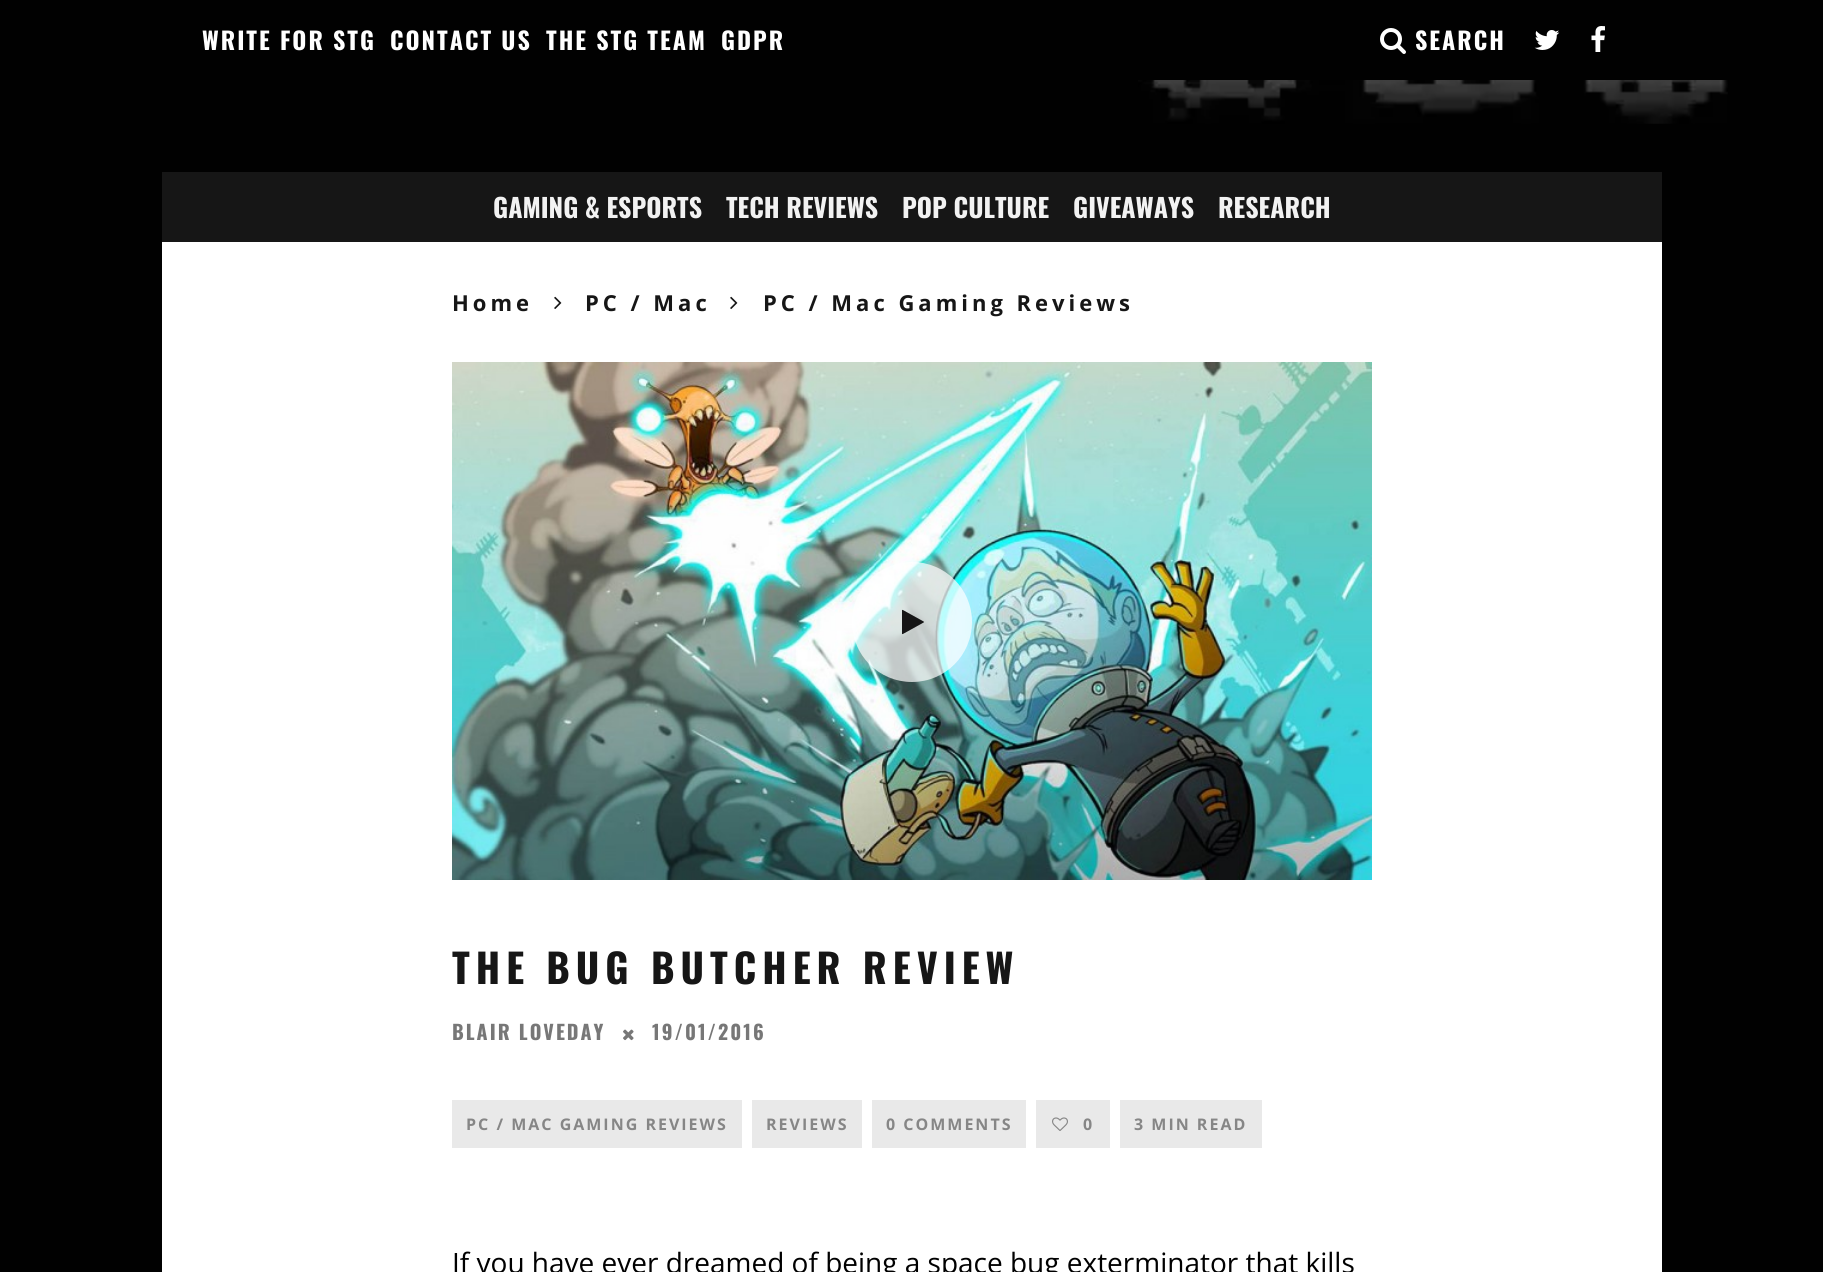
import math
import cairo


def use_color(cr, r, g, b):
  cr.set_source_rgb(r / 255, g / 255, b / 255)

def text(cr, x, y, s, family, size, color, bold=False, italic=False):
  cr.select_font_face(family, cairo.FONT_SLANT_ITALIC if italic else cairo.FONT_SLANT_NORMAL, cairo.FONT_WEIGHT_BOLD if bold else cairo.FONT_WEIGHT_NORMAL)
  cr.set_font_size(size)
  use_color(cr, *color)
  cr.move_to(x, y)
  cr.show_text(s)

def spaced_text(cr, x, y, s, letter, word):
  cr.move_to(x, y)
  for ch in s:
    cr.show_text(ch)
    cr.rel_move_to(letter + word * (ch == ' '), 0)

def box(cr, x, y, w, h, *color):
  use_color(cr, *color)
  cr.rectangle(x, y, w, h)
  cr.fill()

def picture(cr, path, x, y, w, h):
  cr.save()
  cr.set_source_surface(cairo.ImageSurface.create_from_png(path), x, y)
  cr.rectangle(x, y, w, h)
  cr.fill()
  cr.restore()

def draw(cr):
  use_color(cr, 1, 1, 1)
  cr.paint()
  picture(cr, "img_01.png", 1380, 28, 26, 26)
  picture(cr, "img_02.png", 1534, 30, 26, 20)
  picture(cr, "img_03.png", 1591, 26, 14, 26)
  picture(cr, "img_04.png", 1138, 80, 590, 44)
  box(cr, 162, 172, 1500, 70, 22, 22, 22)
  box(cr, 162, 242, 1500, 1030, 255, 255, 255)
  picture(cr, "img_05.png", 554, 296, 8, 13)
  picture(cr, "img_05.png", 730, 296, 8, 13)
  picture(cr, "img_06.png", 452, 362, 920, 518)
  cr.set_source_rgba(1, 1, 1, 0.7)
  cr.arc(912, 622, 60, 0, 2 * math.pi)
  cr.fill()
  picture(cr, "img_07.png", 902, 609, 22, 26)
  picture(cr, "img_08.png", 623, 1029, 11, 12)
  box(cr, 452, 1100, 290, 48, 233, 233, 233)
  box(cr, 752, 1100, 110, 48, 233, 233, 233)
  box(cr, 872, 1100, 154, 48, 233, 233, 233)
  box(cr, 1036, 1100, 74, 48, 233, 233, 233)
  picture(cr, "img_09.png", 1052, 1117, 16, 14)
  box(cr, 1120, 1100, 142, 48, 233, 233, 233)
  cr.select_font_face("Oswald", cairo.FONT_SLANT_NORMAL, cairo.FONT_WEIGHT_BOLD)
  cr.set_font_size(24)
  use_color(cr, 255, 255, 255)
  spaced_text(cr, 202, 50, "WRITE FOR STG", 2, 0)
  spaced_text(cr, 390, 50, "CONTACT US", 2, 0)
  spaced_text(cr, 546, 50, "THE STG TEAM", 2, 0)
  spaced_text(cr, 721, 50, "GDPR", 2, 0)
  spaced_text(cr, 1415, 50, "SEARCH", 2, 0)
  text(cr, 493, 218, "GAMING & ESPORTS", "Oswald", 26, (242, 242, 242), bold=True)
  text(cr, 726, 218, "TECH REVIEWS", "Oswald", 26, (242, 242, 242), bold=True)
  text(cr, 902, 218, "POP CULTURE", "Oswald", 26, (242, 242, 242), bold=True)
  text(cr, 1073, 218, "GIVEAWAYS", "Oswald", 26, (242, 242, 242), bold=True)
  text(cr, 1218, 218, "RESEARCH", "Oswald", 26, (242, 242, 242), bold=True)
  cr.select_font_face("Open Sans", cairo.FONT_SLANT_NORMAL, cairo.FONT_WEIGHT_BOLD)
  cr.set_font_size(22)
  use_color(cr, 22, 22, 22)
  spaced_text(cr, 452, 311, "Home", 4, 0)
  spaced_text(cr, 585, 311, "PC / Mac", 4, 0)
  spaced_text(cr, 763, 311, "PC / Mac Gaming Reviews", 4, 0)
  cr.select_font_face("Oswald", cairo.FONT_SLANT_NORMAL, cairo.FONT_WEIGHT_BOLD)
  cr.set_font_size(40)
  spaced_text(cr, 452, 984, "THE BUG BUTCHER REVIEW", 6, 0)
  cr.set_font_size(20)
  use_color(cr, 119, 119, 119)
  spaced_text(cr, 452, 1040, "BLAIR LOVEDAY", 2, 0)
  spaced_text(cr, 652, 1040, "19/01/2016", 2, 0)
  cr.select_font_face("Open Sans", cairo.FONT_SLANT_NORMAL, cairo.FONT_WEIGHT_BOLD)
  cr.set_font_size(16)
  use_color(cr, 134, 134, 134)
  spaced_text(cr, 466, 1130, "PC / MAC GAMING REVIEWS", 2, 0)
  spaced_text(cr, 766, 1130, "REVIEWS", 2, 0)
  spaced_text(cr, 886, 1130, "0 COMMENTS", 2, 0)
  spaced_text(cr, 1083, 1130, "0", 4, 0)
  spaced_text(cr, 1134, 1130, "3 MIN READ", 2, 0)
  text(cr, 452, 1273, "If you have ever dreamed of being a space bug exterminator that kills", "Open Sans", 28, (0, 0, 0))


surface = cairo.ImageSurface(cairo.FORMAT_RGB24, 1823, 1272)
cr = cairo.Context(surface)
options = cairo.FontOptions()
options.set_hint_metrics(cairo.HINT_METRICS_OFF)
options.set_hint_style(cairo.HINT_STYLE_NONE)
cr.set_font_options(options)
cr.set_miter_limit(4)
draw(cr)
surface.write_to_png("out.png")
